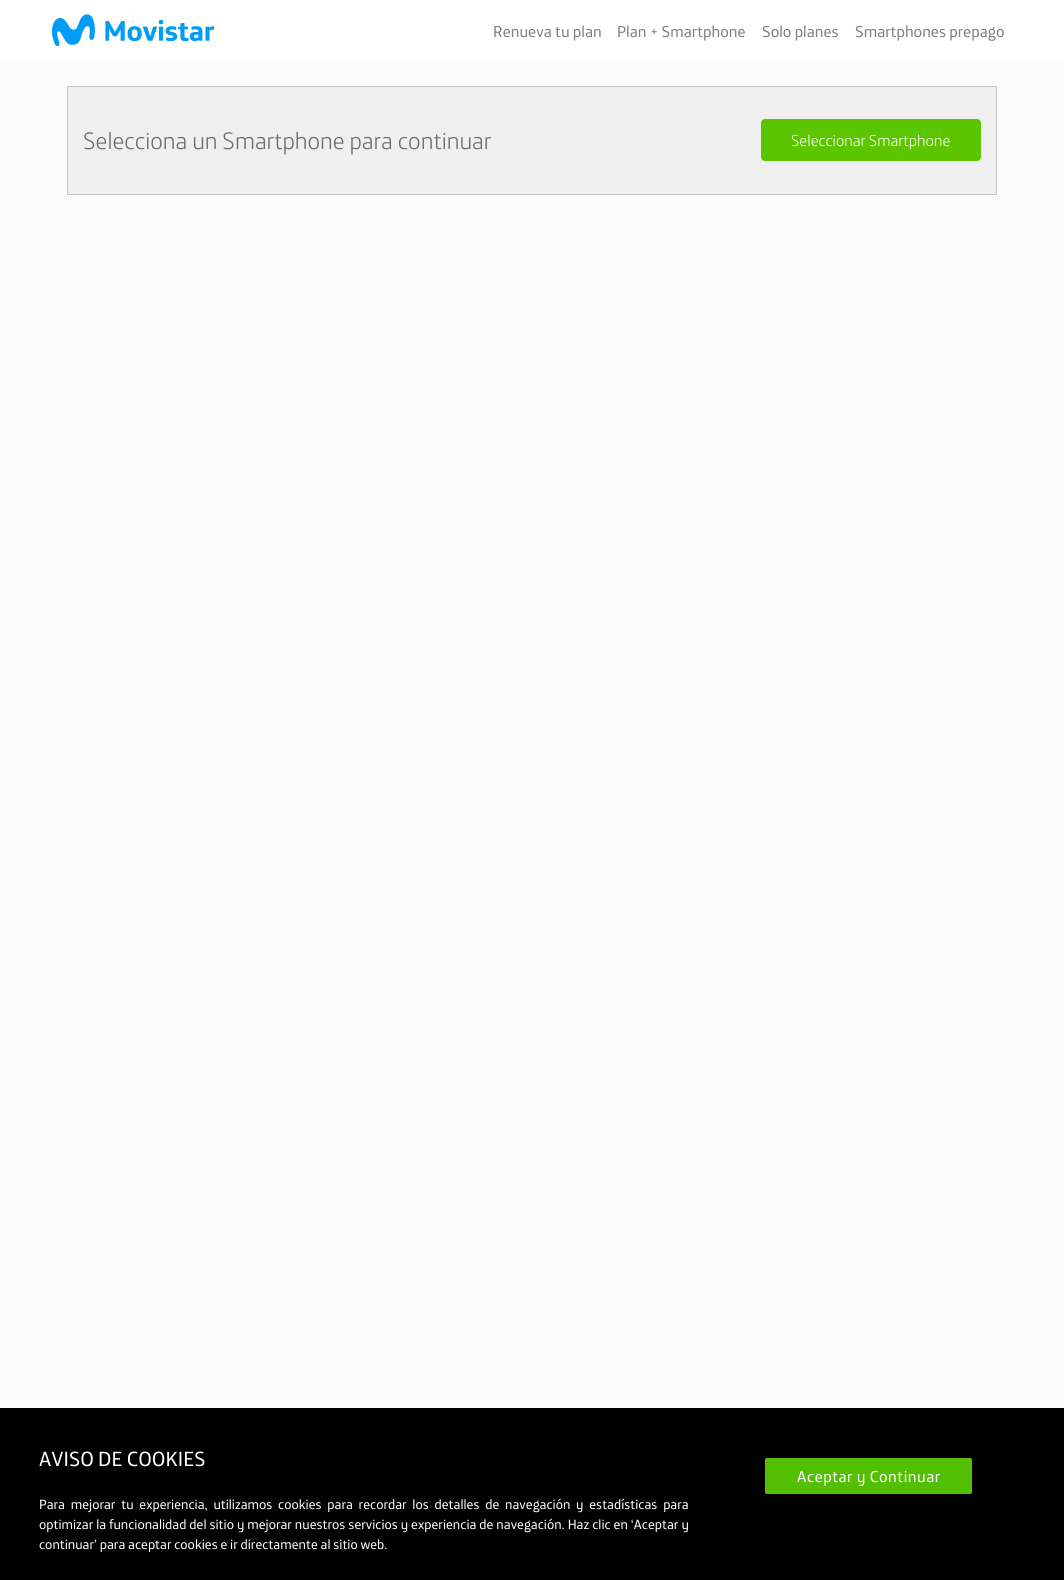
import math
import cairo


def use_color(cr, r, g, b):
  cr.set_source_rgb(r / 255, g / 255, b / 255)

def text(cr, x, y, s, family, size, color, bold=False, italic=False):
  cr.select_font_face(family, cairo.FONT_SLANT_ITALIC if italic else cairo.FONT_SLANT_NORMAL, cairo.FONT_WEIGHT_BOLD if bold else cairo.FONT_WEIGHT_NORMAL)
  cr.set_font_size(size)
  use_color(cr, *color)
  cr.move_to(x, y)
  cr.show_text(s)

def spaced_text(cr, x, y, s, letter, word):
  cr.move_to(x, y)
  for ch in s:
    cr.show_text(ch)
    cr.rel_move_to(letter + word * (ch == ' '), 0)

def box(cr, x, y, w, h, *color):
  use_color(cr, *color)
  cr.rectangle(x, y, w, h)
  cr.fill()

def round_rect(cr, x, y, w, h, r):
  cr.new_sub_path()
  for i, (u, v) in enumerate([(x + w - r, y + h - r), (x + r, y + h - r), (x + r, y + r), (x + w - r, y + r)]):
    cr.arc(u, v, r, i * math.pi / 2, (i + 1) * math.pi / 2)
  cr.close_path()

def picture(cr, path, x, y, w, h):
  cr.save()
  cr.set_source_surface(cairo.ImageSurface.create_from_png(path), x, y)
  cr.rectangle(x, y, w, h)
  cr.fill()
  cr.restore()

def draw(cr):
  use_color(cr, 251, 251, 251)
  cr.paint()
  box(cr, 0, 0, 1064, 61, 255, 255, 255)
  picture(cr, "img_01.png", 52, 14, 162, 32)
  use_color(cr, 239, 239, 239)
  cr.rectangle(67.5, 86.5, 929, 108)
  cr.fill_preserve()
  use_color(cr, 198, 198, 198)
  cr.set_line_width(1)
  cr.stroke()
  use_color(cr, 91, 197, 0)
  round_rect(cr, 761, 119, 220, 42, 4)
  cr.fill()
  box(cr, 0, 1408, 1064, 172, 0, 0, 0)
  use_color(cr, 83, 191, 2)
  round_rect(cr, 765, 1458, 207, 36, 2)
  cr.fill()
  text(cr, 493, 37, "Renueva tu plan", "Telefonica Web", 16, (128, 128, 128))
  text(cr, 617, 37, "Plan + Smartphone", "Telefonica Web", 16, (128, 128, 128))
  text(cr, 762, 37, "Solo planes", "Telefonica Web", 16, (128, 128, 128))
  text(cr, 855, 37, "Smartphones prepago", "Telefonica Web", 16, (128, 128, 128))
  text(cr, 83, 149, "Selecciona un Smartphone para continuar", "Telefonica Web Light", 24, (107, 107, 107))
  text(cr, 791, 146, "Seleccionar Smartphone", "Telefonica Web Light", 16, (255, 255, 255))
  text(cr, 39, 1466, "AVISO DE COOKIES", "Telefonica Web", 20.75, (255, 255, 255))
  cr.set_font_size(13.6)
  spaced_text(cr, 39, 1509, "Para mejorar tu experiencia, utilizamos cookies para recordar los detalles de navegación y estadísticas para", 0, 3)
  spaced_text(cr, 39, 1529, "optimizar la funcionalidad del sitio y mejorar nuestros servicios y experiencia de navegación. Haz clic en ‘Aceptar y", 0, 0.2)
  text(cr, 39, 1549, "continuar’ para aceptar cookies e ir directamente al sitio web.", "Telefonica Web", 13.6, (255, 255, 255))
  cr.set_font_size(16)
  spaced_text(cr, 797, 1482, "Aceptar y Continuar", 0.5, 0)


surface = cairo.ImageSurface(cairo.FORMAT_RGB24, 1064, 1580)
cr = cairo.Context(surface)
options = cairo.FontOptions()
options.set_hint_metrics(cairo.HINT_METRICS_OFF)
options.set_hint_style(cairo.HINT_STYLE_NONE)
cr.set_font_options(options)
cr.set_miter_limit(4)
draw(cr)
surface.write_to_png("out.png")
